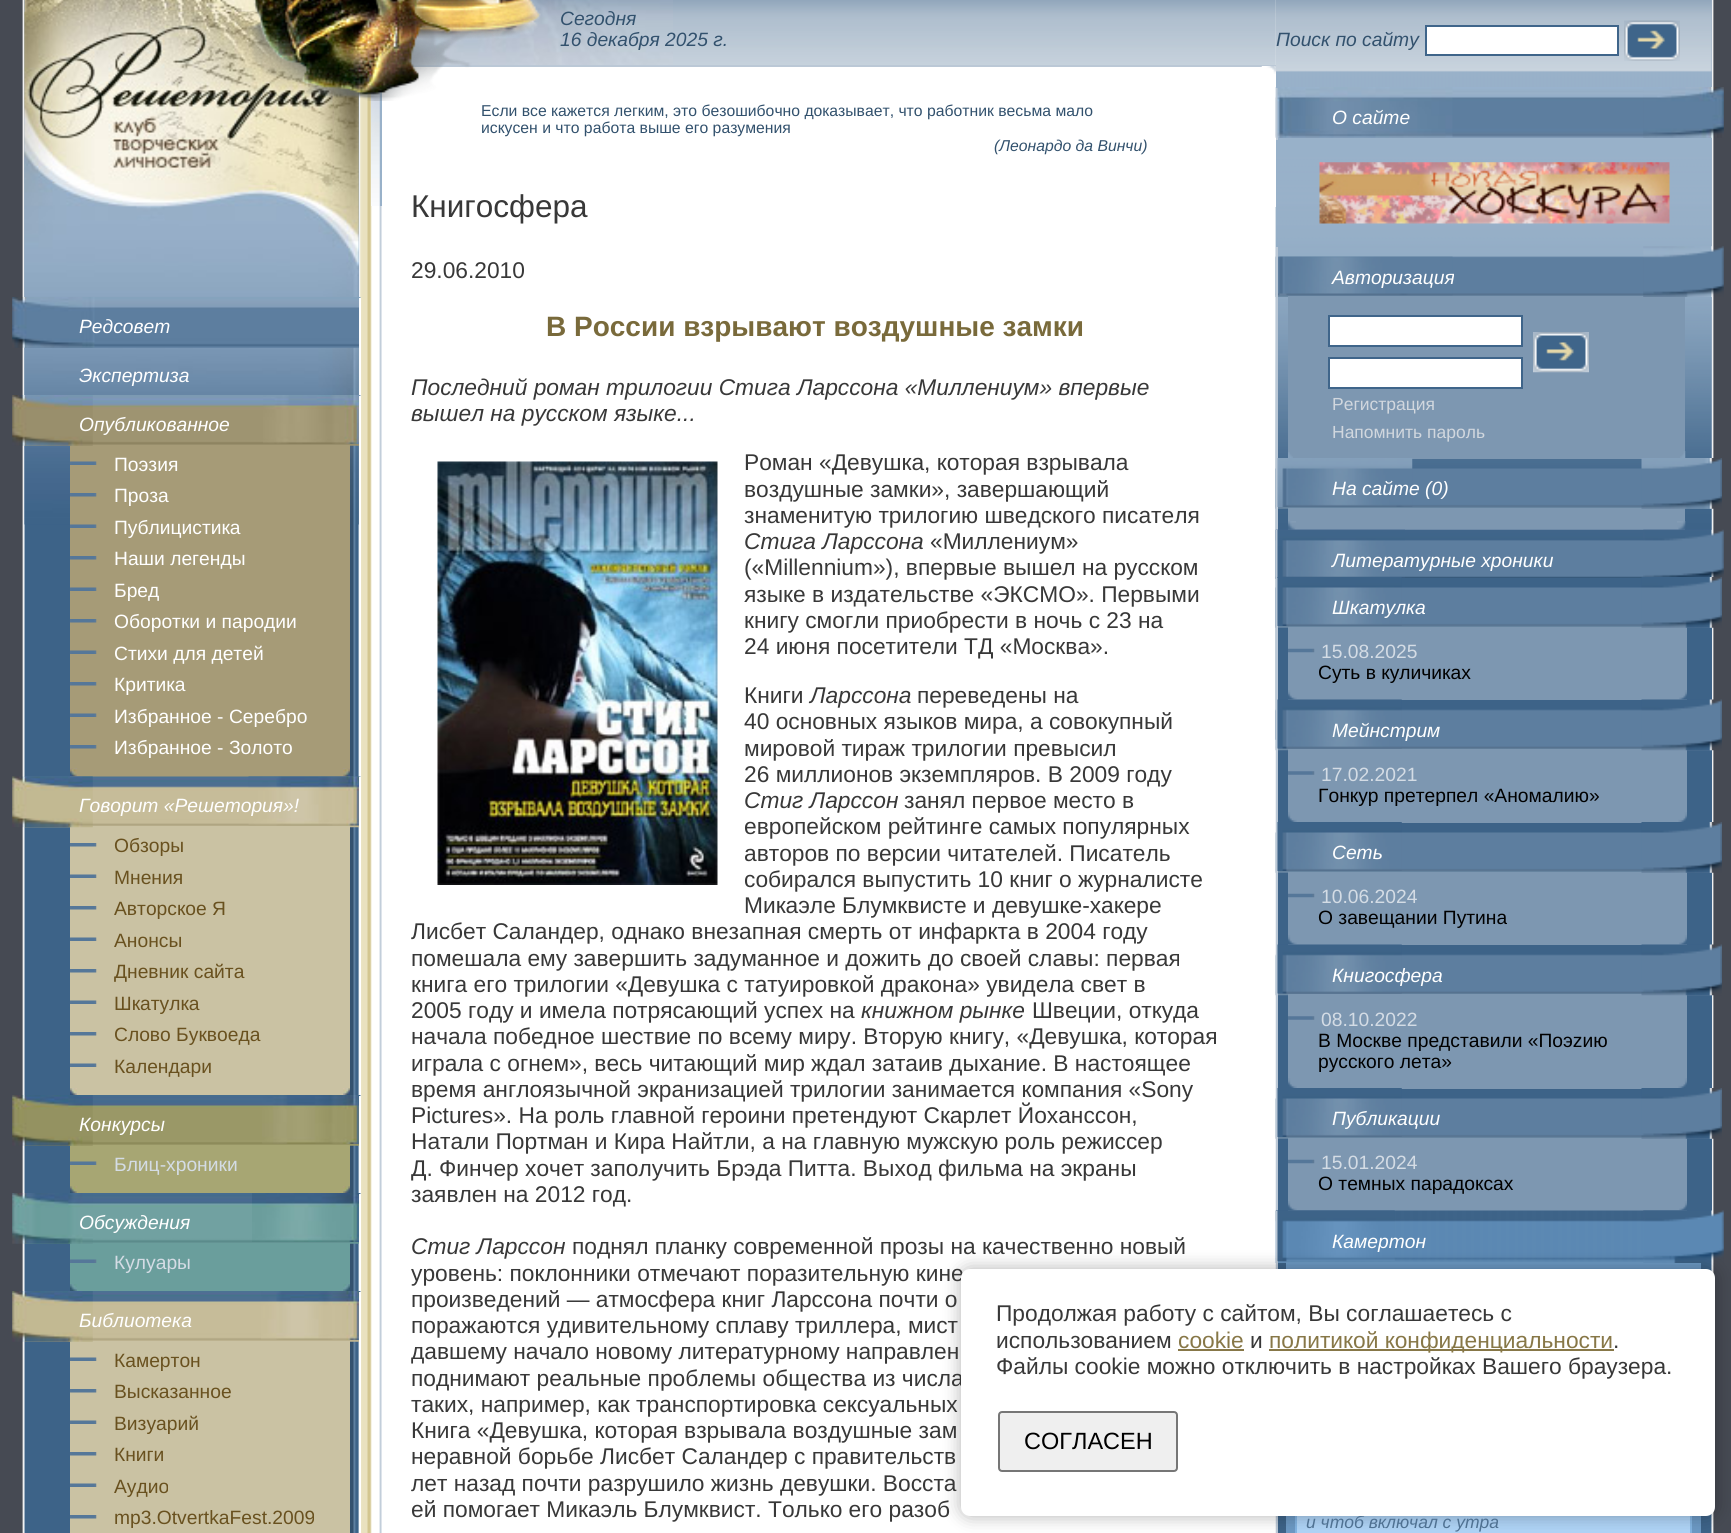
import math
import cairo


def use_color(cr, r, g, b):
  cr.set_source_rgb(r / 255, g / 255, b / 255)

def text(cr, x, y, s, family, size, color, bold=False, italic=False):
  cr.select_font_face(family, cairo.FONT_SLANT_ITALIC if italic else cairo.FONT_SLANT_NORMAL, cairo.FONT_WEIGHT_BOLD if bold else cairo.FONT_WEIGHT_NORMAL)
  cr.set_font_size(size)
  use_color(cr, *color)
  cr.move_to(x, y)
  cr.show_text(s)

def box(cr, x, y, w, h, *color):
  use_color(cr, *color)
  cr.rectangle(x, y, w, h)
  cr.fill()

def round_rect(cr, x, y, w, h, r):
  cr.new_sub_path()
  for i, (u, v) in enumerate([(x + w - r, y + h - r), (x + r, y + h - r), (x + r, y + r), (x + w - r, y + r)]):
    cr.arc(u, v, r, i * math.pi / 2, (i + 1) * math.pi / 2)
  cr.close_path()

def shadow(cr, x, y, w, h, r, blur, alpha):
  cr.push_group_with_content(cairo.CONTENT_ALPHA)
  cr.set_operator(cairo.OPERATOR_SOURCE)
  for i in range(15, -16, -2):
    e = blur * i / 6
    if min(w, h) + 2 * e > 0:
      cr.set_source_rgba(0, 0, 0, alpha * math.erfc((i - 1) / 8.5) / 2)
      round_rect(cr, x - e, y - e, w + 2 * e, h + 2 * e, max(0, min(r + e + blur * .6, min(w, h) / 2 + e)))
      cr.fill()
  cr.mask(cr.pop_group())

def picture(cr, path, x, y, w, h):
  cr.save()
  cr.set_source_surface(cairo.ImageSurface.create_from_png(path), x, y)
  cr.rectangle(x, y, w, h)
  cr.fill()
  cr.restore()

def draw(cr):
  use_color(cr, 255, 255, 255)
  cr.paint()
  picture(cr, "img_01.png", 0, 0, 361, 1533)
  picture(cr, "img_02.png", 24, 0, 335, 525)
  picture(cr, "img_03.png", 24, 11, 311, 173)
  picture(cr, "img_35.png", 360, 91, 22, 1442)
  picture(cr, "img_04.png", 24, 297, 337, 51)
  box(cr, 359, 298, 2, 98, 255, 255, 255)
  picture(cr, "img_05.png", 12, 297, 83, 51)
  picture(cr, "img_06.png", 24, 395, 337, 51)
  box(cr, 359, 396, 2, 381, 255, 255, 255)
  box(cr, 70, 445, 280, 332, 166, 155, 119)
  picture(cr, "img_07.png", 12, 395, 81, 51)
  picture(cr, "img_08.png", 263, 395, 96, 49)
  picture(cr, "img_09.png", 343, 768, 7, 9)
  picture(cr, "img_10.png", 70, 768, 7, 9)
  picture(cr, "img_11.png", 70, 461, 27, 4)
  picture(cr, "img_12.png", 70, 493, 27, 4)
  picture(cr, "img_11.png", 70, 524, 27, 4)
  picture(cr, "img_12.png", 70, 556, 27, 4)
  picture(cr, "img_11.png", 70, 587, 27, 4)
  picture(cr, "img_12.png", 70, 619, 27, 4)
  picture(cr, "img_11.png", 70, 650, 27, 4)
  picture(cr, "img_12.png", 70, 682, 27, 4)
  picture(cr, "img_11.png", 70, 713, 27, 4)
  picture(cr, "img_12.png", 70, 745, 27, 4)
  picture(cr, "img_13.png", 24, 776, 337, 52)
  box(cr, 359, 777, 2, 319, 255, 255, 255)
  box(cr, 70, 826, 280, 269, 202, 194, 163)
  picture(cr, "img_14.png", 12, 776, 81, 52)
  picture(cr, "img_15.png", 248, 776, 111, 50)
  picture(cr, "img_16.png", 343, 1088, 7, 7)
  picture(cr, "img_17.png", 70, 1088, 7, 7)
  picture(cr, "img_18.png", 70, 843, 27, 4)
  picture(cr, "img_19.png", 70, 874, 27, 4)
  picture(cr, "img_18.png", 70, 906, 27, 4)
  picture(cr, "img_19.png", 70, 937, 27, 4)
  picture(cr, "img_18.png", 70, 969, 27, 4)
  picture(cr, "img_19.png", 70, 1000, 27, 4)
  picture(cr, "img_18.png", 70, 1032, 27, 4)
  picture(cr, "img_19.png", 70, 1063, 27, 4)
  picture(cr, "img_20.png", 24, 1095, 337, 51)
  box(cr, 359, 1096, 2, 98, 255, 255, 255)
  box(cr, 70, 1145, 280, 48, 167, 166, 115)
  picture(cr, "img_21.png", 12, 1095, 81, 51)
  picture(cr, "img_22.png", 262, 1095, 97, 49)
  picture(cr, "img_23.png", 343, 1186, 7, 7)
  picture(cr, "img_24.png", 70, 1186, 7, 7)
  picture(cr, "img_25.png", 70, 1161, 27, 4)
  picture(cr, "img_26.png", 24, 1193, 337, 51)
  box(cr, 359, 1194, 2, 98, 255, 255, 255)
  box(cr, 70, 1243, 280, 48, 106, 158, 156)
  picture(cr, "img_27.png", 12, 1193, 81, 51)
  picture(cr, "img_28.png", 252, 1193, 107, 49)
  picture(cr, "img_29.png", 343, 1284, 7, 7)
  picture(cr, "img_30.png", 70, 1284, 7, 7)
  picture(cr, "img_31.png", 70, 1259, 27, 4)
  picture(cr, "img_32.png", 24, 1291, 337, 51)
  box(cr, 359, 1292, 2, 241, 255, 255, 255)
  box(cr, 70, 1341, 280, 192, 202, 194, 163)
  picture(cr, "img_33.png", 12, 1291, 81, 51)
  picture(cr, "img_34.png", 261, 1291, 98, 49)
  picture(cr, "img_19.png", 70, 1357, 27, 4)
  picture(cr, "img_18.png", 70, 1389, 27, 4)
  picture(cr, "img_19.png", 70, 1420, 27, 4)
  picture(cr, "img_18.png", 70, 1452, 27, 4)
  picture(cr, "img_19.png", 70, 1483, 27, 4)
  picture(cr, "img_18.png", 70, 1515, 27, 4)
  picture(cr, "img_43.png", 1275, 0, 456, 1533)
  picture(cr, "img_37.png", 379, 0, 897, 206)
  picture(cr, "img_38.png", 371, 91, 9, 115)
  picture(cr, "img_39.png", 409, 0, 264, 65)
  picture(cr, "img_44.png", 1275, 0, 437, 740)
  box(cr, 382, 67, 894, 140, 255, 255, 255)
  box(cr, 410, 65, 866, 2, 187, 200, 214)
  picture(cr, "img_36.png", 245, 0, 296, 101)
  picture(cr, "img_40.png", 1267, 67, 9, 7)
  picture(cr, "img_41.png", 1261, 66, 15, 6)
  picture(cr, "img_42.png", 437, 461, 281, 424)
  use_color(cr, 255, 255, 255)
  cr.rectangle(1426, 26, 192, 29)
  cr.fill_preserve()
  use_color(cr, 63, 101, 138)
  cr.stroke()
  picture(cr, "img_45.png", 1624, 20, 56, 41)
  picture(cr, "img_46.png", 1275, 87, 437, 51)
  box(cr, 1276, 88, 2, 52, 187, 200, 214)
  picture(cr, "img_47.png", 1277, 87, 176, 51)
  picture(cr, "img_48.png", 1643, 87, 81, 51)
  picture(cr, "img_49.png", 1319, 162, 351, 62)
  picture(cr, "img_50.png", 1275, 256, 369, 41)
  box(cr, 1276, 247, 2, 212, 187, 200, 214)
  picture(cr, "img_51.png", 1279, 256, 174, 40)
  box(cr, 1288, 296, 397, 163, 125, 151, 177)
  picture(cr, "img_52.png", 1643, 246, 81, 51)
  picture(cr, "img_53.png", 1680, 451, 6, 7)
  picture(cr, "img_54.png", 1288, 452, 5, 6)
  use_color(cr, 255, 255, 255)
  cr.rectangle(1329, 316, 193, 30)
  cr.fill_preserve()
  use_color(cr, 63, 101, 138)
  cr.stroke()
  picture(cr, "img_55.png", 1533, 332, 56, 41)
  use_color(cr, 255, 255, 255)
  cr.rectangle(1329, 358, 193, 30)
  cr.fill_preserve()
  use_color(cr, 63, 101, 138)
  cr.stroke()
  picture(cr, "img_56.png", 1275, 468, 437, 41)
  box(cr, 1276, 459, 2, 71, 187, 200, 214)
  picture(cr, "img_57.png", 1277, 458, 136, 49)
  box(cr, 1288, 508, 397, 22, 125, 151, 177)
  picture(cr, "img_58.png", 1641, 458, 81, 51)
  picture(cr, "img_59.png", 1677, 521, 9, 9)
  picture(cr, "img_60.png", 1288, 521, 8, 9)
  picture(cr, "img_61.png", 1275, 529, 437, 50)
  box(cr, 1276, 530, 2, 53, 187, 200, 214)
  picture(cr, "img_62.png", 1277, 529, 128, 49)
  picture(cr, "img_63.png", 1643, 529, 81, 50)
  box(cr, 1278, 578, 434, 122, 61, 99, 136)
  picture(cr, "img_64.png", 1275, 587, 437, 41)
  box(cr, 1276, 578, 2, 122, 187, 200, 214)
  picture(cr, "img_65.png", 1277, 577, 125, 49)
  box(cr, 1288, 627, 399, 73, 125, 151, 177)
  picture(cr, "img_66.png", 1641, 577, 81, 51)
  picture(cr, "img_67.png", 1679, 690, 8, 10)
  picture(cr, "img_68.png", 1288, 690, 9, 10)
  picture(cr, "img_69.png", 1288, 648, 27, 5)
  box(cr, 1711, 700, 1, 122, 61, 99, 136)
  picture(cr, "img_70.png", 1275, 709, 437, 42)
  box(cr, 1276, 700, 2, 123, 187, 200, 214)
  picture(cr, "img_71.png", 1277, 699, 125, 50)
  box(cr, 1288, 749, 399, 74, 125, 151, 177)
  picture(cr, "img_72.png", 1641, 699, 81, 52)
  picture(cr, "img_73.png", 1678, 812, 9, 10)
  picture(cr, "img_74.png", 1288, 812, 9, 10)
  picture(cr, "img_75.png", 1288, 771, 27, 4)
  box(cr, 1711, 823, 1, 265, 61, 99, 136)
  picture(cr, "img_76.png", 1275, 832, 437, 41)
  box(cr, 1276, 823, 2, 122, 187, 200, 214)
  picture(cr, "img_77.png", 1277, 822, 125, 49)
  box(cr, 1288, 872, 399, 73, 125, 151, 177)
  picture(cr, "img_78.png", 1641, 822, 81, 51)
  picture(cr, "img_67.png", 1679, 935, 8, 10)
  picture(cr, "img_68.png", 1288, 935, 9, 10)
  picture(cr, "img_69.png", 1288, 893, 27, 5)
  picture(cr, "img_79.png", 1275, 954, 437, 42)
  box(cr, 1276, 945, 2, 144, 187, 200, 214)
  picture(cr, "img_80.png", 1277, 944, 125, 50)
  box(cr, 1288, 994, 399, 95, 125, 151, 177)
  picture(cr, "img_72.png", 1641, 944, 81, 52)
  picture(cr, "img_73.png", 1678, 1078, 9, 10)
  picture(cr, "img_74.png", 1288, 1078, 9, 10)
  picture(cr, "img_75.png", 1288, 1016, 27, 4)
  box(cr, 1711, 1089, 1, 122, 61, 99, 136)
  picture(cr, "img_81.png", 1275, 1098, 437, 41)
  box(cr, 1276, 1089, 2, 122, 187, 200, 214)
  picture(cr, "img_77.png", 1277, 1088, 125, 49)
  box(cr, 1288, 1138, 399, 73, 125, 151, 177)
  picture(cr, "img_82.png", 1641, 1088, 81, 51)
  picture(cr, "img_67.png", 1679, 1201, 8, 10)
  picture(cr, "img_68.png", 1288, 1201, 9, 10)
  picture(cr, "img_69.png", 1288, 1159, 27, 5)
  picture(cr, "img_83.png", 1275, 1210, 437, 53)
  box(cr, 1276, 1211, 2, 322, 187, 200, 214)
  picture(cr, "img_84.png", 1277, 1210, 118, 52)
  box(cr, 1286, 1262, 415, 271, 108, 153, 196)
  picture(cr, "img_85.png", 1643, 1210, 81, 53)
  box(cr, 1297, 1516, 393, 17, 175, 212, 247)
  cr.rectangle(1296, 1272, 395, 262)
  use_color(cr, 131, 180, 226)
  cr.stroke()
  use_color(cr, 0, 0, 0)
  shadow(cr, 961, 1269, 754, 247, 9, 9, 0.3)
  text(cr, 79, 333, "Редсовет", "Liberation Sans", 19.25, (255, 255, 255), italic=True)
  text(cr, 79, 382, "Экспертиза", "Liberation Sans", 19.25, (255, 255, 255), italic=True)
  text(cr, 79, 431, "Опубликованное", "Liberation Sans", 19.25, (255, 255, 255), italic=True)
  text(cr, 114, 471, "Поэзия", "Liberation Sans", 19.25, (255, 255, 255))
  text(cr, 114, 502, "Проза", "Liberation Sans", 19.25, (255, 255, 255))
  text(cr, 114, 534, "Публицистика", "Liberation Sans", 19.25, (255, 255, 255))
  text(cr, 114, 565, "Наши легенды", "Liberation Sans", 19.25, (255, 255, 255))
  text(cr, 114, 597, "Бред", "Liberation Sans", 19.25, (255, 255, 255))
  text(cr, 114, 628, "Оборотки и пародии", "Liberation Sans", 19.25, (255, 255, 255))
  text(cr, 114, 660, "Стихи для детей", "Liberation Sans", 19.25, (255, 255, 255))
  text(cr, 114, 691, "Критика", "Liberation Sans", 19.25, (255, 255, 255))
  text(cr, 114, 723, "Избранное - Серебро", "Liberation Sans", 19.25, (255, 255, 255))
  text(cr, 114, 754, "Избранное - Золото", "Liberation Sans", 19.25, (255, 255, 255))
  text(cr, 79, 812, "Говорит «Решетория»!", "Liberation Sans", 19.25, (255, 255, 255), italic=True)
  text(cr, 114, 852, "Обзоры", "Liberation Sans", 19.25, (105, 81, 31))
  text(cr, 114, 884, "Мнения", "Liberation Sans", 19.25, (105, 81, 31))
  text(cr, 114, 915, "Авторское Я", "Liberation Sans", 19.25, (105, 81, 31))
  text(cr, 114, 947, "Анонсы", "Liberation Sans", 19.25, (105, 81, 31))
  text(cr, 114, 978, "Дневник сайта", "Liberation Sans", 19.25, (105, 81, 31))
  text(cr, 114, 1010, "Шкатулка", "Liberation Sans", 19.25, (105, 81, 31))
  text(cr, 114, 1041, "Слово Буквоеда", "Liberation Sans", 19.25, (105, 81, 31))
  text(cr, 114, 1073, "Календари", "Liberation Sans", 19.25, (105, 81, 31))
  text(cr, 79, 1131, "Конкурсы", "Liberation Sans", 19.25, (255, 255, 255), italic=True)
  text(cr, 114, 1171, "Блиц-хроники", "Liberation Sans", 19.25, (212, 220, 229))
  text(cr, 79, 1229, "Обсуждения", "Liberation Sans", 19.25, (255, 255, 255), italic=True)
  text(cr, 114, 1269, "Кулуары", "Liberation Sans", 19.25, (212, 220, 229))
  text(cr, 79, 1327, "Библиотека", "Liberation Sans", 19.25, (255, 255, 255), italic=True)
  text(cr, 114, 1367, "Камертон", "Liberation Sans", 19.25, (105, 81, 31))
  text(cr, 114, 1398, "Высказанное", "Liberation Sans", 19.25, (105, 81, 31))
  text(cr, 114, 1430, "Визуарий", "Liberation Sans", 19.25, (105, 81, 31))
  text(cr, 114, 1461, "Книги", "Liberation Sans", 19.25, (105, 81, 31))
  text(cr, 114, 1493, "Аудио", "Liberation Sans", 19.25, (105, 81, 31))
  text(cr, 114, 1524, "mp3.OtvertkaFest.2009", "Liberation Sans", 19.25, (105, 81, 31))
  text(cr, 560, 25, "Сегодня", "Liberation Sans", 19.25, (50, 81, 109), italic=True)
  text(cr, 560, 46, "16 декабря 2025 г.", "Liberation Sans", 19.25, (50, 81, 109), italic=True)
  text(cr, 481, 116, "Если все кажется легким, это безошибочно доказывает, что работник весьма мало", "Liberation Sans", 15.75, (50, 81, 109))
  text(cr, 481, 133, "искусен и что работа выше его разумения", "Liberation Sans", 15.75, (50, 81, 109))
  text(cr, 994, 151, "(Леонардо да Винчи)", "Liberation Sans", 15.75, (50, 81, 109), italic=True)
  text(cr, 411, 217, "Книгосфера", "Liberation Sans", 31.5, (56, 56, 56))
  text(cr, 411, 278, "29.06.2010", "Liberation Sans", 22.75, (56, 56, 56))
  text(cr, 546, 336, "В России взрывают воздушные замки", "Liberation Sans", 28, (121, 106, 59), bold=True)
  text(cr, 411, 395, "Последний роман трилогии Стига Ларссона «Миллениум» впервые", "Liberation Sans", 22.75, (56, 56, 56), italic=True)
  text(cr, 411, 421, "вышел на русском языке...", "Liberation Sans", 22.75, (56, 56, 56), italic=True)
  text(cr, 744, 470, "Роман «Девушка, которая взрывала", "Liberation Sans", 22.75, (56, 56, 56))
  text(cr, 744, 497, "воздушные замки», завершающий", "Liberation Sans", 22.75, (56, 56, 56))
  text(cr, 744, 523, "знаменитую трилогию шведского писателя", "Liberation Sans", 22.75, (56, 56, 56))
  text(cr, 744, 549, "Стига Ларссона", "Liberation Sans", 22.75, (56, 56, 56), italic=True)
  text(cr, 930, 549, "«Миллениум»", "Liberation Sans", 22.75, (56, 56, 56))
  text(cr, 744, 575, "(«Millennium»), впервые вышел на русском", "Liberation Sans", 22.75, (56, 56, 56))
  text(cr, 744, 602, "языке в издательстве «ЭКСМО». Первыми", "Liberation Sans", 22.75, (56, 56, 56))
  text(cr, 744, 628, "книгу смогли приобрести в ночь с 23 на", "Liberation Sans", 22.75, (56, 56, 56))
  text(cr, 744, 654, "24 июня посетители ТД «Москва».", "Liberation Sans", 22.75, (56, 56, 56))
  text(cr, 744, 703, "Книги", "Liberation Sans", 22.75, (56, 56, 56))
  text(cr, 810, 703, "Ларссона", "Liberation Sans", 22.75, (56, 56, 56), italic=True)
  text(cr, 917, 703, "переведены на", "Liberation Sans", 22.75, (56, 56, 56))
  text(cr, 744, 729, "40 основных языков мира, а совокупный", "Liberation Sans", 22.75, (56, 56, 56))
  text(cr, 744, 756, "мировой тираж трилогии превысил", "Liberation Sans", 22.75, (56, 56, 56))
  text(cr, 744, 782, "26 миллионов экземпляров. В 2009 году", "Liberation Sans", 22.75, (56, 56, 56))
  text(cr, 744, 808, "Стиг Ларссон", "Liberation Sans", 22.75, (56, 56, 56), italic=True)
  text(cr, 904, 808, "занял первое место в", "Liberation Sans", 22.75, (56, 56, 56))
  text(cr, 744, 834, "европейском рейтинге самых популярных", "Liberation Sans", 22.75, (56, 56, 56))
  text(cr, 744, 861, "авторов по версии читателей. Писатель", "Liberation Sans", 22.75, (56, 56, 56))
  text(cr, 744, 887, "собирался выпустить 10 книг о журналисте", "Liberation Sans", 22.75, (56, 56, 56))
  text(cr, 744, 913, "Микаэле Блумквисте и девушке-хакере", "Liberation Sans", 22.75, (56, 56, 56))
  text(cr, 411, 939, "Лисбет Саландер, однако внезапная смерть от инфаркта в 2004 году", "Liberation Sans", 22.75, (56, 56, 56))
  text(cr, 411, 966, "помешала ему завершить задуманное и дожить до своей славы: первая", "Liberation Sans", 22.75, (56, 56, 56))
  text(cr, 411, 992, "книга его трилогии «Девушка с татуировкой дракона» увидела свет в", "Liberation Sans", 22.75, (56, 56, 56))
  text(cr, 411, 1018, "2005 году и имела потрясающий успех на", "Liberation Sans", 22.75, (56, 56, 56))
  text(cr, 861, 1018, "книжном рынке", "Liberation Sans", 22.75, (56, 56, 56), italic=True)
  text(cr, 1032, 1018, "Швеции, откуда", "Liberation Sans", 22.75, (56, 56, 56))
  text(cr, 411, 1044, "начала победное шествие по всему миру. Вторую книгу, «Девушка, которая", "Liberation Sans", 22.75, (56, 56, 56))
  text(cr, 411, 1071, "играла с огнем», весь читающий мир ждал затаив дыхание. В настоящее", "Liberation Sans", 22.75, (56, 56, 56))
  text(cr, 411, 1097, "время англоязычной экранизацией трилогии занимается компания «Sony", "Liberation Sans", 22.75, (56, 56, 56))
  text(cr, 411, 1123, "Pictures». На роль главной героини претендуют Скарлет Йоханссон,", "Liberation Sans", 22.75, (56, 56, 56))
  text(cr, 411, 1149, "Натали Портман и Кира Найтли, а на главную мужскую роль режиссер", "Liberation Sans", 22.75, (56, 56, 56))
  text(cr, 411, 1176, "Д. Финчер хочет заполучить Брэда Питта. Выход фильма на экраны", "Liberation Sans", 22.75, (56, 56, 56))
  text(cr, 411, 1202, "заявлен на 2012 год.", "Liberation Sans", 22.75, (56, 56, 56))
  text(cr, 411, 1254, "Стиг Ларссон", "Liberation Sans", 22.75, (56, 56, 56), italic=True)
  text(cr, 572, 1254, "поднял планку современной прозы на качественно новый", "Liberation Sans", 22.75, (56, 56, 56))
  text(cr, 411, 1281, "уровень: поклонники отмечают поразительную кине", "Liberation Sans", 22.75, (56, 56, 56))
  text(cr, 411, 1307, "произведений — атмосфера книг Ларссона почти о", "Liberation Sans", 22.75, (56, 56, 56))
  text(cr, 411, 1333, "поражаются удивительному сплаву триллера, мист", "Liberation Sans", 22.75, (56, 56, 56))
  text(cr, 411, 1359, "давшему начало новому литературному направлен", "Liberation Sans", 22.75, (56, 56, 56))
  text(cr, 411, 1386, "поднимают реальные проблемы общества из числа", "Liberation Sans", 22.75, (56, 56, 56))
  text(cr, 411, 1412, "таких, например, как транспортировка сексуальных", "Liberation Sans", 22.75, (56, 56, 56))
  text(cr, 411, 1438, "Книга «Девушка, которая взрывала воздушные зам", "Liberation Sans", 22.75, (56, 56, 56))
  text(cr, 411, 1464, "неравной борьбе Лисбет Саландер с правительств", "Liberation Sans", 22.75, (56, 56, 56))
  text(cr, 411, 1491, "лет назад почти разрушило жизнь девушки. Восста", "Liberation Sans", 22.75, (56, 56, 56))
  text(cr, 411, 1517, "ей помогает Микаэль Блумквист. Только его разоб", "Liberation Sans", 22.75, (56, 56, 56))
  text(cr, 1276, 46, "Поиск по сайту", "Liberation Sans", 19.25, (50, 81, 109), italic=True)
  text(cr, 1332, 124, "О сайте", "Liberation Sans", 19.25, (255, 255, 255), italic=True)
  text(cr, 1332, 284, "Авторизация", "Liberation Sans", 19.25, (255, 255, 255), italic=True)
  text(cr, 1332, 410, "Регистрация", "Liberation Sans", 17.5, (209, 215, 222))
  text(cr, 1332, 438, "Напомнить пароль", "Liberation Sans", 17.5, (209, 215, 222))
  text(cr, 1332, 495, "На сайте (0)", "Liberation Sans", 19.25, (255, 255, 255), italic=True)
  text(cr, 1332, 567, "Литературные хроники", "Liberation Sans", 19.25, (255, 255, 255), italic=True)
  text(cr, 1332, 614, "Шкатулка", "Liberation Sans", 19.25, (255, 255, 255), italic=True)
  text(cr, 1321, 658, "15.08.2025", "Liberation Sans", 19.25, (212, 220, 229))
  text(cr, 1318, 679, "Суть в куличиках", "Liberation Sans", 19.25, (0, 0, 0))
  text(cr, 1332, 737, "Мейнстрим", "Liberation Sans", 19.25, (255, 255, 255), italic=True)
  text(cr, 1321, 781, "17.02.2021", "Liberation Sans", 19.25, (212, 220, 229))
  text(cr, 1318, 802, "Гонкур претерпел «Аномалию»", "Liberation Sans", 19.25, (0, 0, 0))
  text(cr, 1332, 859, "Сеть", "Liberation Sans", 19.25, (255, 255, 255), italic=True)
  text(cr, 1321, 903, "10.06.2024", "Liberation Sans", 19.25, (212, 220, 229))
  text(cr, 1318, 924, "О завещании Путина", "Liberation Sans", 19.25, (0, 0, 0))
  text(cr, 1332, 982, "Книгосфера", "Liberation Sans", 19.25, (255, 255, 255), italic=True)
  text(cr, 1321, 1026, "08.10.2022", "Liberation Sans", 19.25, (212, 220, 229))
  text(cr, 1318, 1047, "В Москве представили «Поэzию", "Liberation Sans", 19.25, (0, 0, 0))
  text(cr, 1318, 1068, "русского лета»", "Liberation Sans", 19.25, (0, 0, 0))
  text(cr, 1332, 1125, "Публикации", "Liberation Sans", 19.25, (255, 255, 255), italic=True)
  text(cr, 1321, 1169, "15.01.2024", "Liberation Sans", 19.25, (212, 220, 229))
  text(cr, 1318, 1190, "О темных парадоксах", "Liberation Sans", 19.25, (0, 0, 0))
  text(cr, 1332, 1248, "Камертон", "Liberation Sans", 19.25, (255, 255, 255), italic=True)
  text(cr, 1306, 1528, "и чтоб включал с утра", "Liberation Sans", 17.5, (79, 113, 146), italic=True)
  use_color(cr, 255, 255, 255)
  round_rect(cr, 961, 1269, 754, 247, 9)
  cr.fill()
  text(cr, 996, 1321, "Продолжая работу с сайтом, Вы соглашаетесь с", "Liberation Sans", 22.75, (56, 56, 56))
  text(cr, 996, 1348, "использованием", "Liberation Sans", 22.75, (56, 56, 56))
  text(cr, 1178, 1348, "cookie", "Liberation Sans", 22.75, (135, 119, 71))
  box(cr, 1178, 1349, 66, 2, 135, 119, 71)
  text(cr, 1250, 1348, "и", "Liberation Sans", 22.75, (56, 56, 56))
  box(cr, 1269, 1349, 345, 2, 135, 119, 71)
  text(cr, 1269, 1348, "политикой конфиденциальности", "Liberation Sans", 22.75, (135, 119, 71))
  text(cr, 1613, 1348, ".", "Liberation Sans", 22.75, (56, 56, 56))
  text(cr, 996, 1374, "Файлы cookie можно отключить в настройках Вашего браузера.", "Liberation Sans", 22.75, (56, 56, 56))
  use_color(cr, 239, 239, 239)
  round_rect(cr, 999, 1412, 178, 59, 3)
  cr.fill_preserve()
  use_color(cr, 118, 118, 118)
  cr.stroke()
  text(cr, 1024, 1449, "СОГЛАСЕН", "Liberation Sans", 23.5, (0, 0, 0))


surface = cairo.ImageSurface(cairo.FORMAT_RGB24, 1731, 1533)
cr = cairo.Context(surface)
options = cairo.FontOptions()
options.set_hint_metrics(cairo.HINT_METRICS_OFF)
options.set_hint_style(cairo.HINT_STYLE_NONE)
cr.set_font_options(options)
cr.set_miter_limit(4)
draw(cr)
surface.write_to_png("out.png")
